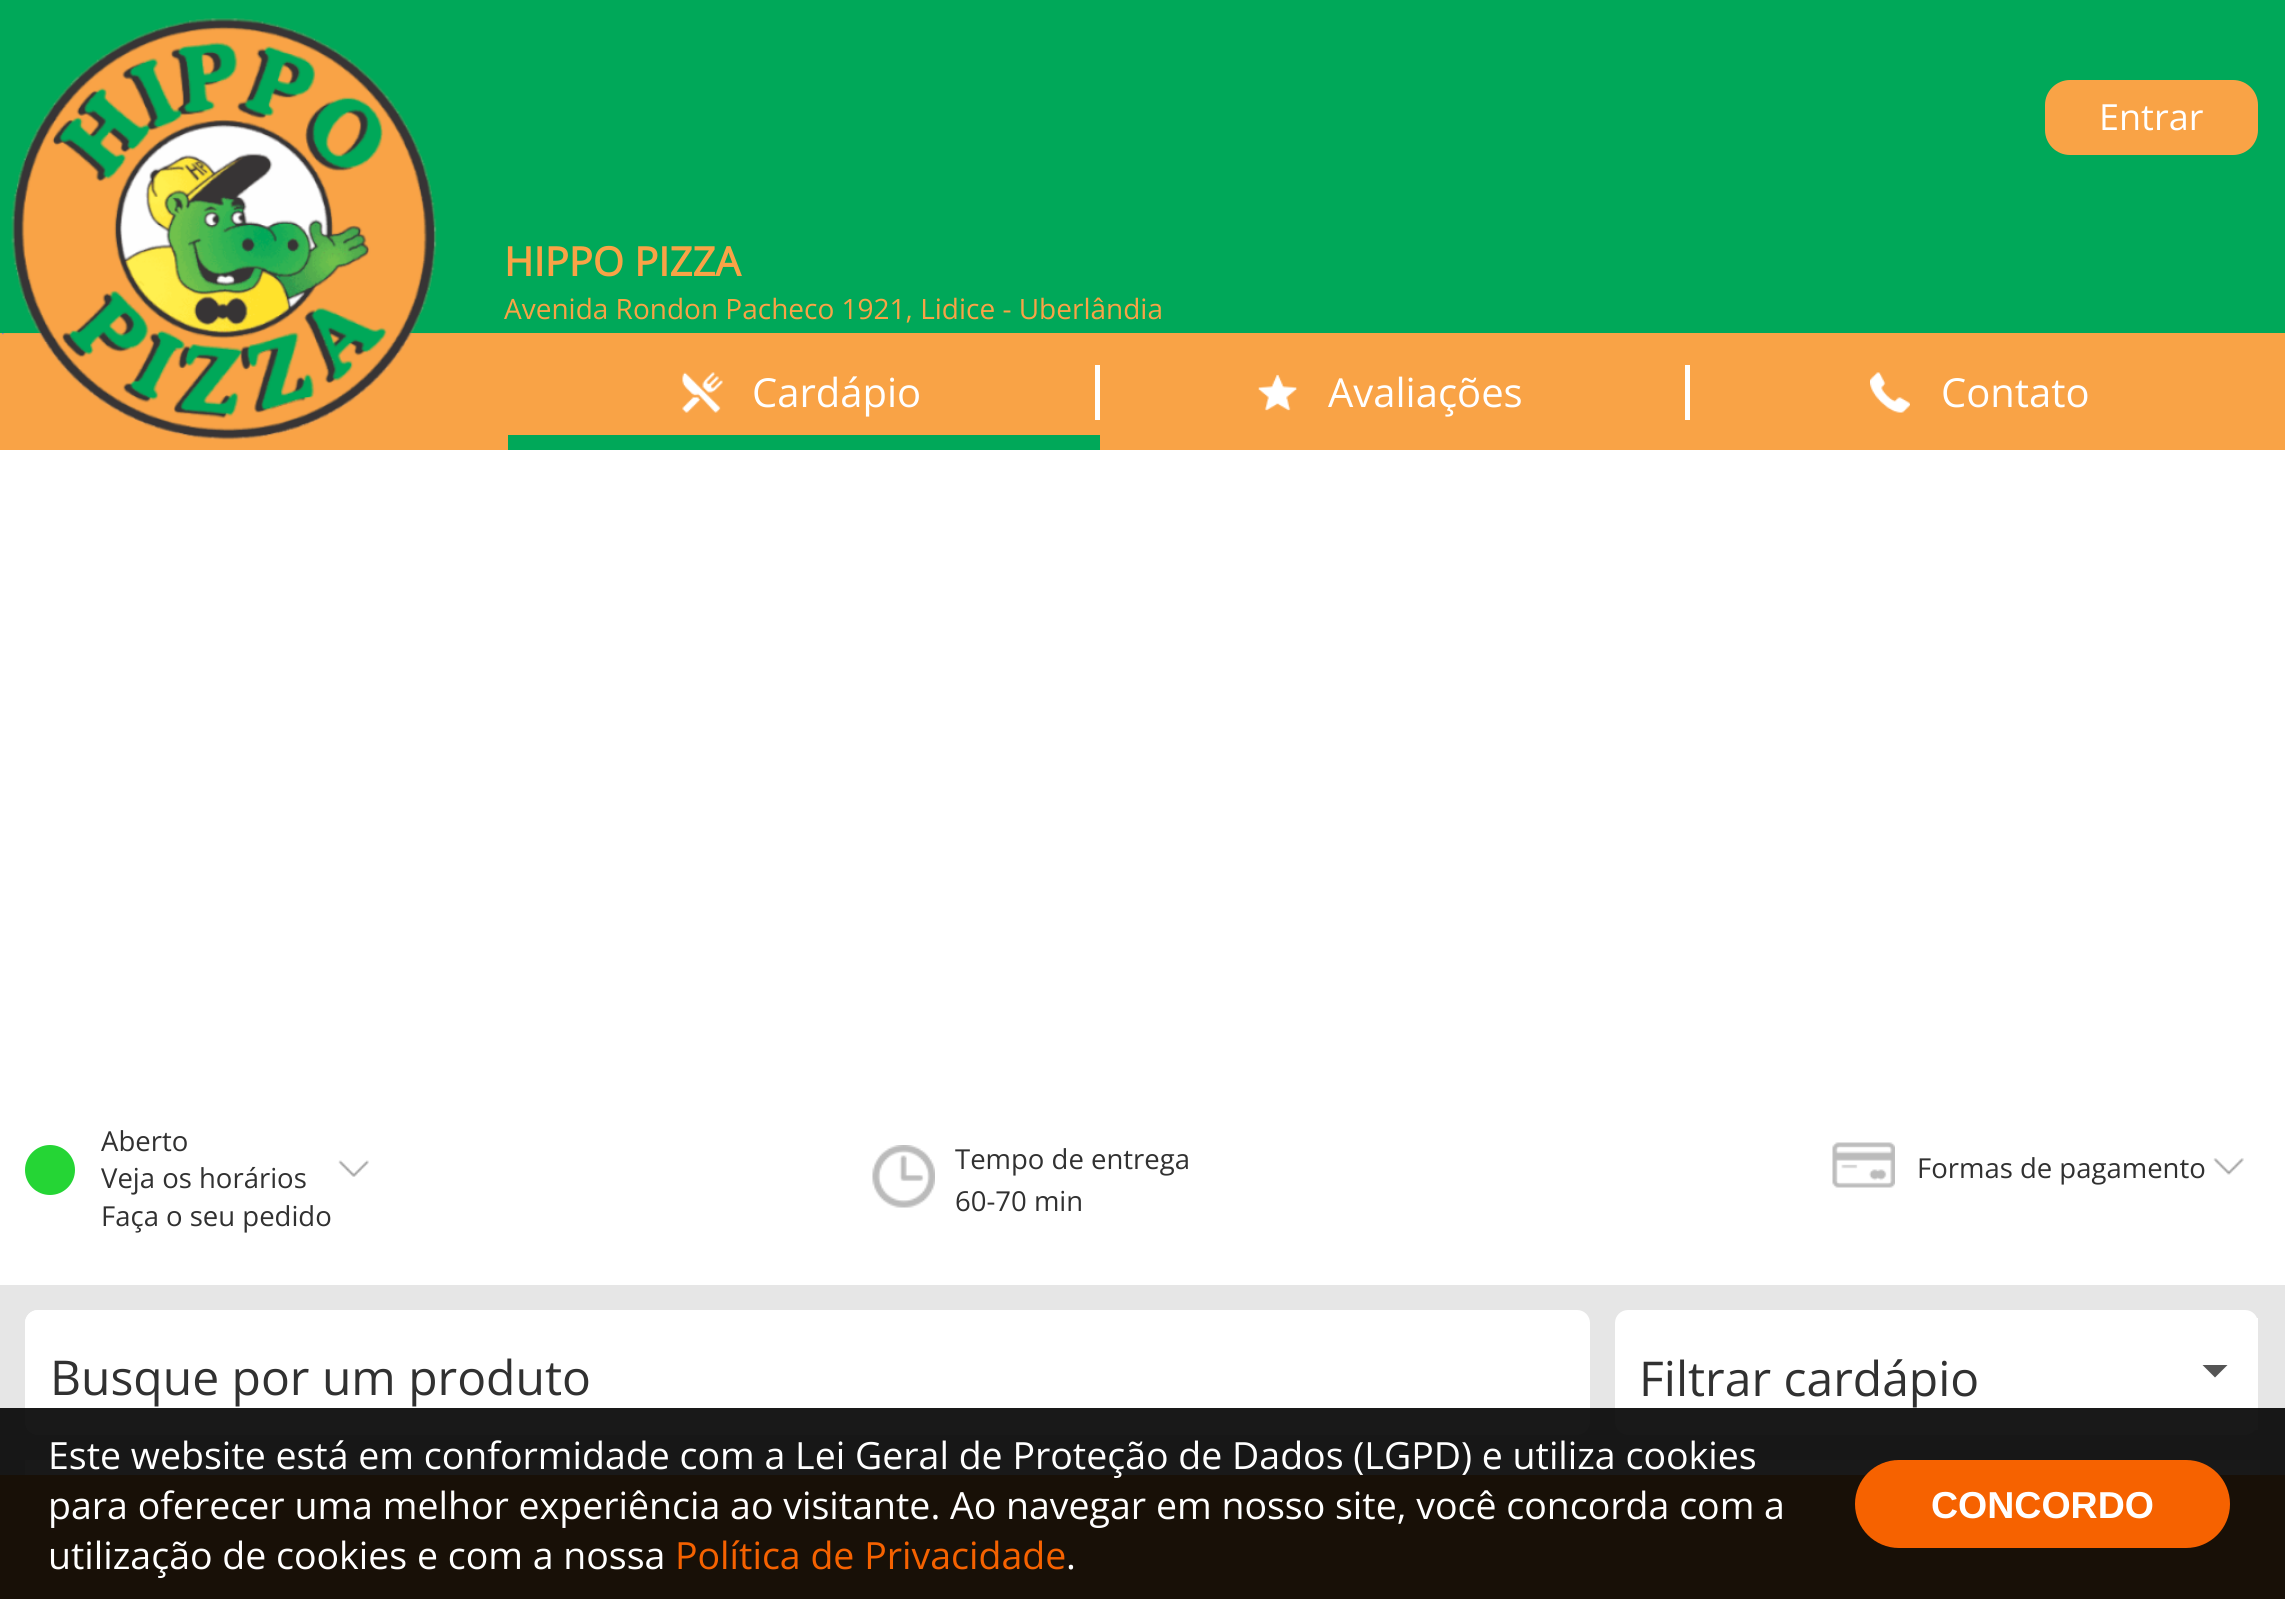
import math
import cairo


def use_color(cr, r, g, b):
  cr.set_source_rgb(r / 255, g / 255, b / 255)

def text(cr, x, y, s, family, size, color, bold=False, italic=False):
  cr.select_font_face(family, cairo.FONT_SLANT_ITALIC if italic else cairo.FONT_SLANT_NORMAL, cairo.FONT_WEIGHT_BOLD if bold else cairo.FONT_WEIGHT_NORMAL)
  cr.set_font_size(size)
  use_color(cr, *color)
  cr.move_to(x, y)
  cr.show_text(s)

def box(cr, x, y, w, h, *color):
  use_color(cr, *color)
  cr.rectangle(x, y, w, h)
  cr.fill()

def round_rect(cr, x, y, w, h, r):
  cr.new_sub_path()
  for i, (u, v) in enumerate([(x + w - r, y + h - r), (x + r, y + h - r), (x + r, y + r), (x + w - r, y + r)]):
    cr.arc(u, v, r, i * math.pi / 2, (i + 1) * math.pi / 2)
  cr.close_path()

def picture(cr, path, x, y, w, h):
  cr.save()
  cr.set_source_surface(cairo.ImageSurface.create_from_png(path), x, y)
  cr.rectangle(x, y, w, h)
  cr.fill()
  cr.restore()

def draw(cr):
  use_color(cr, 255, 255, 255)
  cr.paint()
  box(cr, 450, 0, 1835, 333, 0, 168, 89)
  box(cr, 0, 333, 2285, 117, 249, 163, 70)
  picture(cr, "img_01.png", 0, 0, 450, 440)
  round_rect(cr, 2045, 80, 213, 75, 25)
  cr.fill()
  box(cr, 508, 435, 592, 15, 0, 168, 89)
  box(cr, 1095, 365, 5, 55, 255, 255, 255)
  picture(cr, "img_02.png", 682, 372, 41, 41)
  box(cr, 1685, 365, 5, 55, 255, 255, 255)
  picture(cr, "img_03.png", 1258, 374, 39, 37)
  picture(cr, "img_04.png", 1870, 372, 40, 41)
  use_color(cr, 37, 213, 53)
  cr.arc(50, 1170, 25, 0, 2 * math.pi)
  cr.fill()
  picture(cr, "img_05.png", 338, 1160, 31, 17)
  picture(cr, "img_06.png", 872, 1145, 63, 63)
  picture(cr, "img_07.png", 1832, 1142, 63, 46)
  picture(cr, "img_08.png", 2213, 1158, 31, 17)
  box(cr, 0, 1475, 2285, 124, 249, 163, 70)
  box(cr, 0, 1285, 2285, 190, 230, 230, 230)
  use_color(cr, 255, 255, 255)
  round_rect(cr, 25, 1310, 1565, 125, 13)
  cr.fill()
  cr.new_path()
  cr.move_to(38, 1310)
  cr.line_to(1465, 1310)
  cr.line_to(1465, 1435)
  cr.line_to(38, 1435)
  cr.curve_to(31, 1435, 25, 1429, 25, 1422)
  cr.line_to(25, 1323)
  cr.curve_to(25, 1316, 31, 1310, 38, 1310)
  cr.close_path()
  cr.fill()
  round_rect(cr, 1615, 1310, 643, 125, 13)
  cr.fill()
  box(cr, 2255, 1318, 3, 112, 255, 255, 255)
  use_color(cr, 85, 85, 85)
  cr.new_path()
  cr.move_to(2202.5, 1365)
  cr.line_to(2227.5, 1365)
  cr.line_to(2215, 1377.5)
  cr.close_path()
  cr.fill()
  box(cr, 25, 1460, 2235, 15, 255, 255, 255)
  cr.set_source_rgba(0, 0, 0, 0.9)
  cr.rectangle(0, 1408, 2285, 191)
  cr.fill()
  use_color(cr, 246, 98, 0)
  round_rect(cr, 1855, 1460, 375, 88, 44)
  cr.fill()
  text(cr, 2099, 130, "Entrar", "Open Sans", 36, (255, 255, 255))
  text(cr, 504, 276, "HIPPO PIZZA", "Open Sans", 40, (249, 163, 70), bold=True)
  text(cr, 504, 319, "Avenida Rondon Pacheco 1921, Lidice - Uberlândia", "Open Sans", 28, (249, 163, 70))
  text(cr, 752, 407, "Cardápio", "Open Sans", 40, (255, 255, 255))
  text(cr, 1328, 407, "Avaliações", "Open Sans", 40, (255, 255, 255))
  text(cr, 1941, 407, "Contato", "Open Sans", 40, (255, 255, 255))
  text(cr, 101, 1151, "Aberto", "Open Sans", 27.5, (49, 49, 49))
  text(cr, 101, 1188, "Veja os horários", "Open Sans", 27.5, (49, 49, 49))
  text(cr, 101, 1226, "Faça o seu pedido", "Open Sans", 27.5, (49, 49, 49))
  text(cr, 955, 1169, "Tempo de entrega", "Open Sans", 27.5, (49, 49, 49))
  text(cr, 955, 1211, "60-70 min", "Open Sans", 27.5, (49, 49, 49))
  text(cr, 1917, 1178, "Formas de pagamento", "Open Sans", 27.5, (49, 49, 49))
  text(cr, 50, 1395, "Busque por um produto", "Open Sans", 48, (49, 49, 49))
  text(cr, 1639, 1396, "Filtrar cardápio", "Open Sans", 48, (49, 49, 49))
  text(cr, 48, 1469, "Este website está em conformidade com a Lei Geral de Proteção de Dados (LGPD) e utiliza cookies", "Open Sans", 37.5, (255, 255, 255))
  text(cr, 48, 1519, "para oferecer uma melhor experiência ao visitante. Ao navegar em nosso site, você concorda com a", "Open Sans", 37.5, (255, 255, 255))
  text(cr, 48, 1569, "utilização de cookies e com a nossa", "Open Sans", 37.5, (255, 255, 255))
  text(cr, 675, 1569, "Política de Privacidade", "Open Sans", 37.5, (246, 98, 0))
  text(cr, 1066, 1569, ".", "Open Sans", 37.5, (255, 255, 255))
  text(cr, 1931, 1518, "CONCORDO", "Liberation Sans", 37.5, (255, 255, 255), bold=True)


surface = cairo.ImageSurface(cairo.FORMAT_RGB24, 2285, 1599)
cr = cairo.Context(surface)
options = cairo.FontOptions()
options.set_hint_metrics(cairo.HINT_METRICS_OFF)
options.set_hint_style(cairo.HINT_STYLE_NONE)
cr.set_font_options(options)
cr.set_miter_limit(4)
draw(cr)
surface.write_to_png("out.png")
